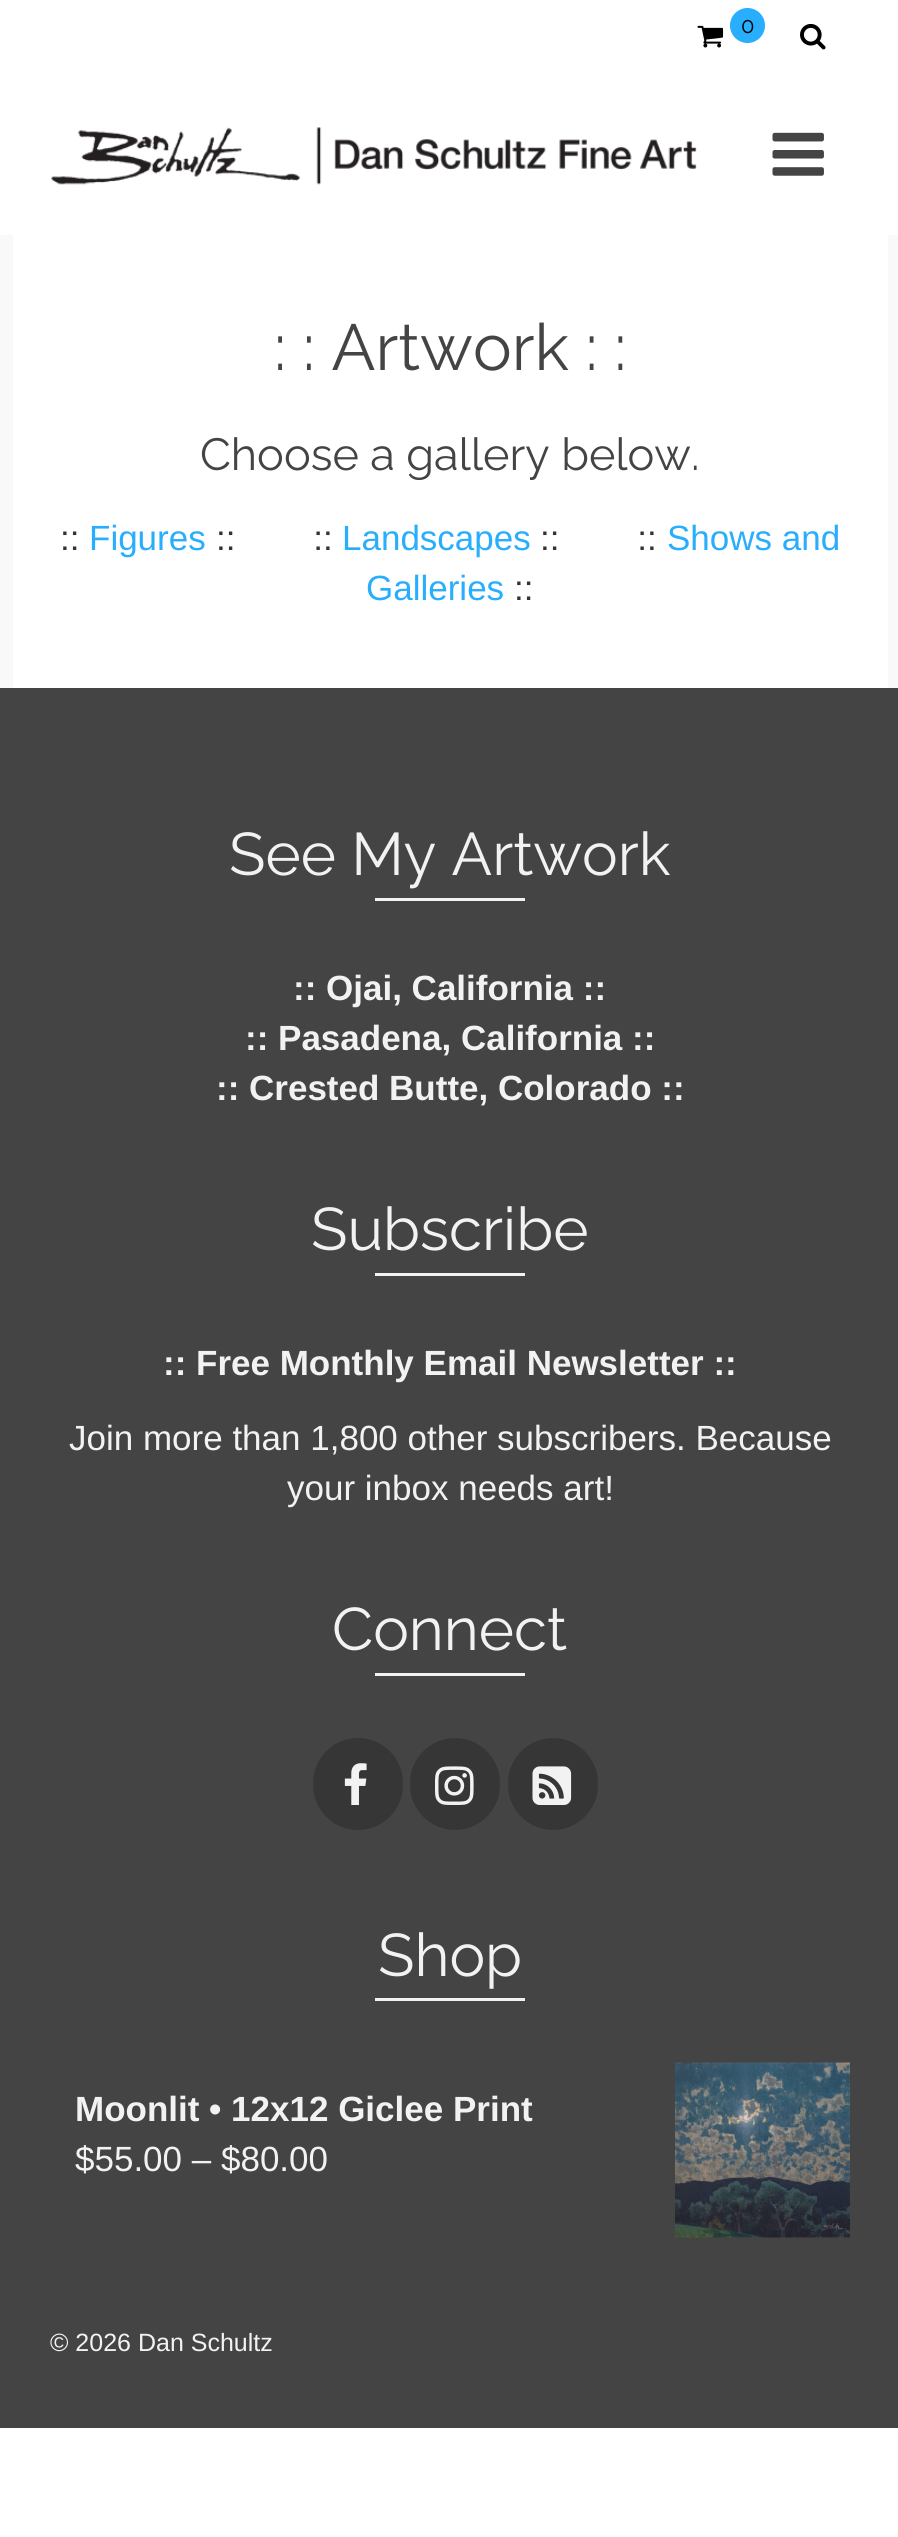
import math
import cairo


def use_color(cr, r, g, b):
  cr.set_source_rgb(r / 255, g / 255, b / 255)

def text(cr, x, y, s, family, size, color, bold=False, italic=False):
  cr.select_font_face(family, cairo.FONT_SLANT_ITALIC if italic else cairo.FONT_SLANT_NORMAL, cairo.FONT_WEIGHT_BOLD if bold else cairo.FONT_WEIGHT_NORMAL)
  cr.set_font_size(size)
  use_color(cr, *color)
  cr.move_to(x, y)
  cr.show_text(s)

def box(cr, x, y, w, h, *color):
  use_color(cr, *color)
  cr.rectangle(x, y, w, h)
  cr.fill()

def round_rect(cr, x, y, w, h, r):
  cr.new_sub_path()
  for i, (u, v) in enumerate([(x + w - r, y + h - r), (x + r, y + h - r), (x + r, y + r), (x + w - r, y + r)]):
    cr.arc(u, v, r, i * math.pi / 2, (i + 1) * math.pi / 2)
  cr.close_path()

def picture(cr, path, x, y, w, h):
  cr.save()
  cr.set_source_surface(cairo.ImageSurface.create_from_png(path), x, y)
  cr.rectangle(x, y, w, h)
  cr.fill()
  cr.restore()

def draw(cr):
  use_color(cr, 255, 255, 255)
  cr.paint()
  picture(cr, "img_01.png", 697, 25, 27, 23)
  use_color(cr, 40, 174, 252)
  cr.arc(747.5, 25.5, 17.5, 0, 2 * math.pi)
  cr.fill()
  picture(cr, "img_02.png", 800, 23, 26, 27)
  picture(cr, "img_03.png", 51, 127, 646, 58)
  picture(cr, "img_04.png", 772, 132, 52, 44)
  box(cr, 0, 235, 898, 453, 249, 249, 249)
  box(cr, 13, 235, 875, 453, 255, 255, 255)
  box(cr, 0, 688, 898, 1740, 68, 68, 68)
  box(cr, 375, 898, 150, 3, 242, 242, 242)
  box(cr, 375, 1273, 150, 3, 242, 242, 242)
  box(cr, 375, 1673, 150, 3, 242, 242, 242)
  use_color(cr, 54, 54, 54)
  round_rect(cr, 313, 1738, 90, 92, 45)
  cr.fill()
  picture(cr, "img_05.png", 344, 1763, 23, 42)
  round_rect(cr, 410, 1738, 90, 92, 45)
  cr.fill()
  picture(cr, "img_06.png", 435, 1766, 39, 39)
  round_rect(cr, 508, 1738, 90, 92, 45)
  cr.fill()
  picture(cr, "img_07.png", 532, 1766, 40, 39)
  box(cr, 375, 1998, 150, 3, 242, 242, 242)
  picture(cr, "img_08.png", 675, 2062, 175, 176)
  text(cr, 741, 33, "0", "Raleway", 22, (0, 0, 0))
  text(cr, 274, 370, ": : Artwork : :", "Raleway", 65, (68, 68, 68))
  text(cr, 200, 470, "Choose a gallery below.", "Raleway", 45, (68, 68, 68))
  text(cr, 60, 550, "::", "Liberation Sans", 35, (51, 51, 51))
  text(cr, 89, 550, "Figures", "Liberation Sans", 35, (40, 174, 252))
  text(cr, 216, 550, "::        ::", "Liberation Sans", 35, (51, 51, 51))
  text(cr, 342, 550, "Landscapes", "Liberation Sans", 35, (40, 174, 252))
  text(cr, 540, 550, "::        ::", "Liberation Sans", 35, (51, 51, 51))
  text(cr, 667, 550, "Shows and", "Liberation Sans", 35, (40, 174, 252))
  text(cr, 366, 600, "Galleries", "Liberation Sans", 35, (40, 174, 252))
  text(cr, 514, 600, "::", "Liberation Sans", 35, (51, 51, 51))
  text(cr, 229, 875, "See My Artwork", "Raleway", 60, (242, 242, 242))
  text(cr, 293, 1000, ":: Ojai, California ::", "Liberation Sans", 35, (242, 242, 242), bold=True)
  text(cr, 245, 1050, ":: Pasadena, California ::", "Liberation Sans", 35, (242, 242, 242), bold=True)
  text(cr, 216, 1100, ":: Crested Butte, Colorado ::", "Liberation Sans", 35, (242, 242, 242), bold=True)
  text(cr, 311, 1250, "Subscribe", "Raleway", 60, (242, 242, 242))
  text(cr, 163, 1375, ":: Free Monthly Email Newsletter ::", "Liberation Sans", 35, (242, 242, 242), bold=True)
  text(cr, 69, 1450, "Join more than 1,800 other subscribers. Because", "Liberation Sans", 35, (242, 242, 242))
  text(cr, 287, 1500, "your inbox needs art!", "Liberation Sans", 35, (242, 242, 242))
  text(cr, 332, 1650, "Connect", "Raleway", 60, (242, 242, 242))
  text(cr, 378, 1976, "Shop", "Raleway", 60, (242, 242, 242))
  text(cr, 75, 2121, "Moonlit • 12x12 Giclee Print", "Liberation Sans", 35, (242, 242, 242), bold=True)
  text(cr, 75, 2171, "$55.00 – $80.00", "Liberation Sans", 35, (242, 242, 242))
  text(cr, 50, 2351, "© 2026 Dan Schultz", "Liberation Sans", 25, (242, 242, 242))


surface = cairo.ImageSurface(cairo.FORMAT_RGB24, 898, 2537)
cr = cairo.Context(surface)
options = cairo.FontOptions()
options.set_hint_metrics(cairo.HINT_METRICS_OFF)
options.set_hint_style(cairo.HINT_STYLE_NONE)
cr.set_font_options(options)
cr.set_miter_limit(4)
draw(cr)
surface.write_to_png("out.png")
